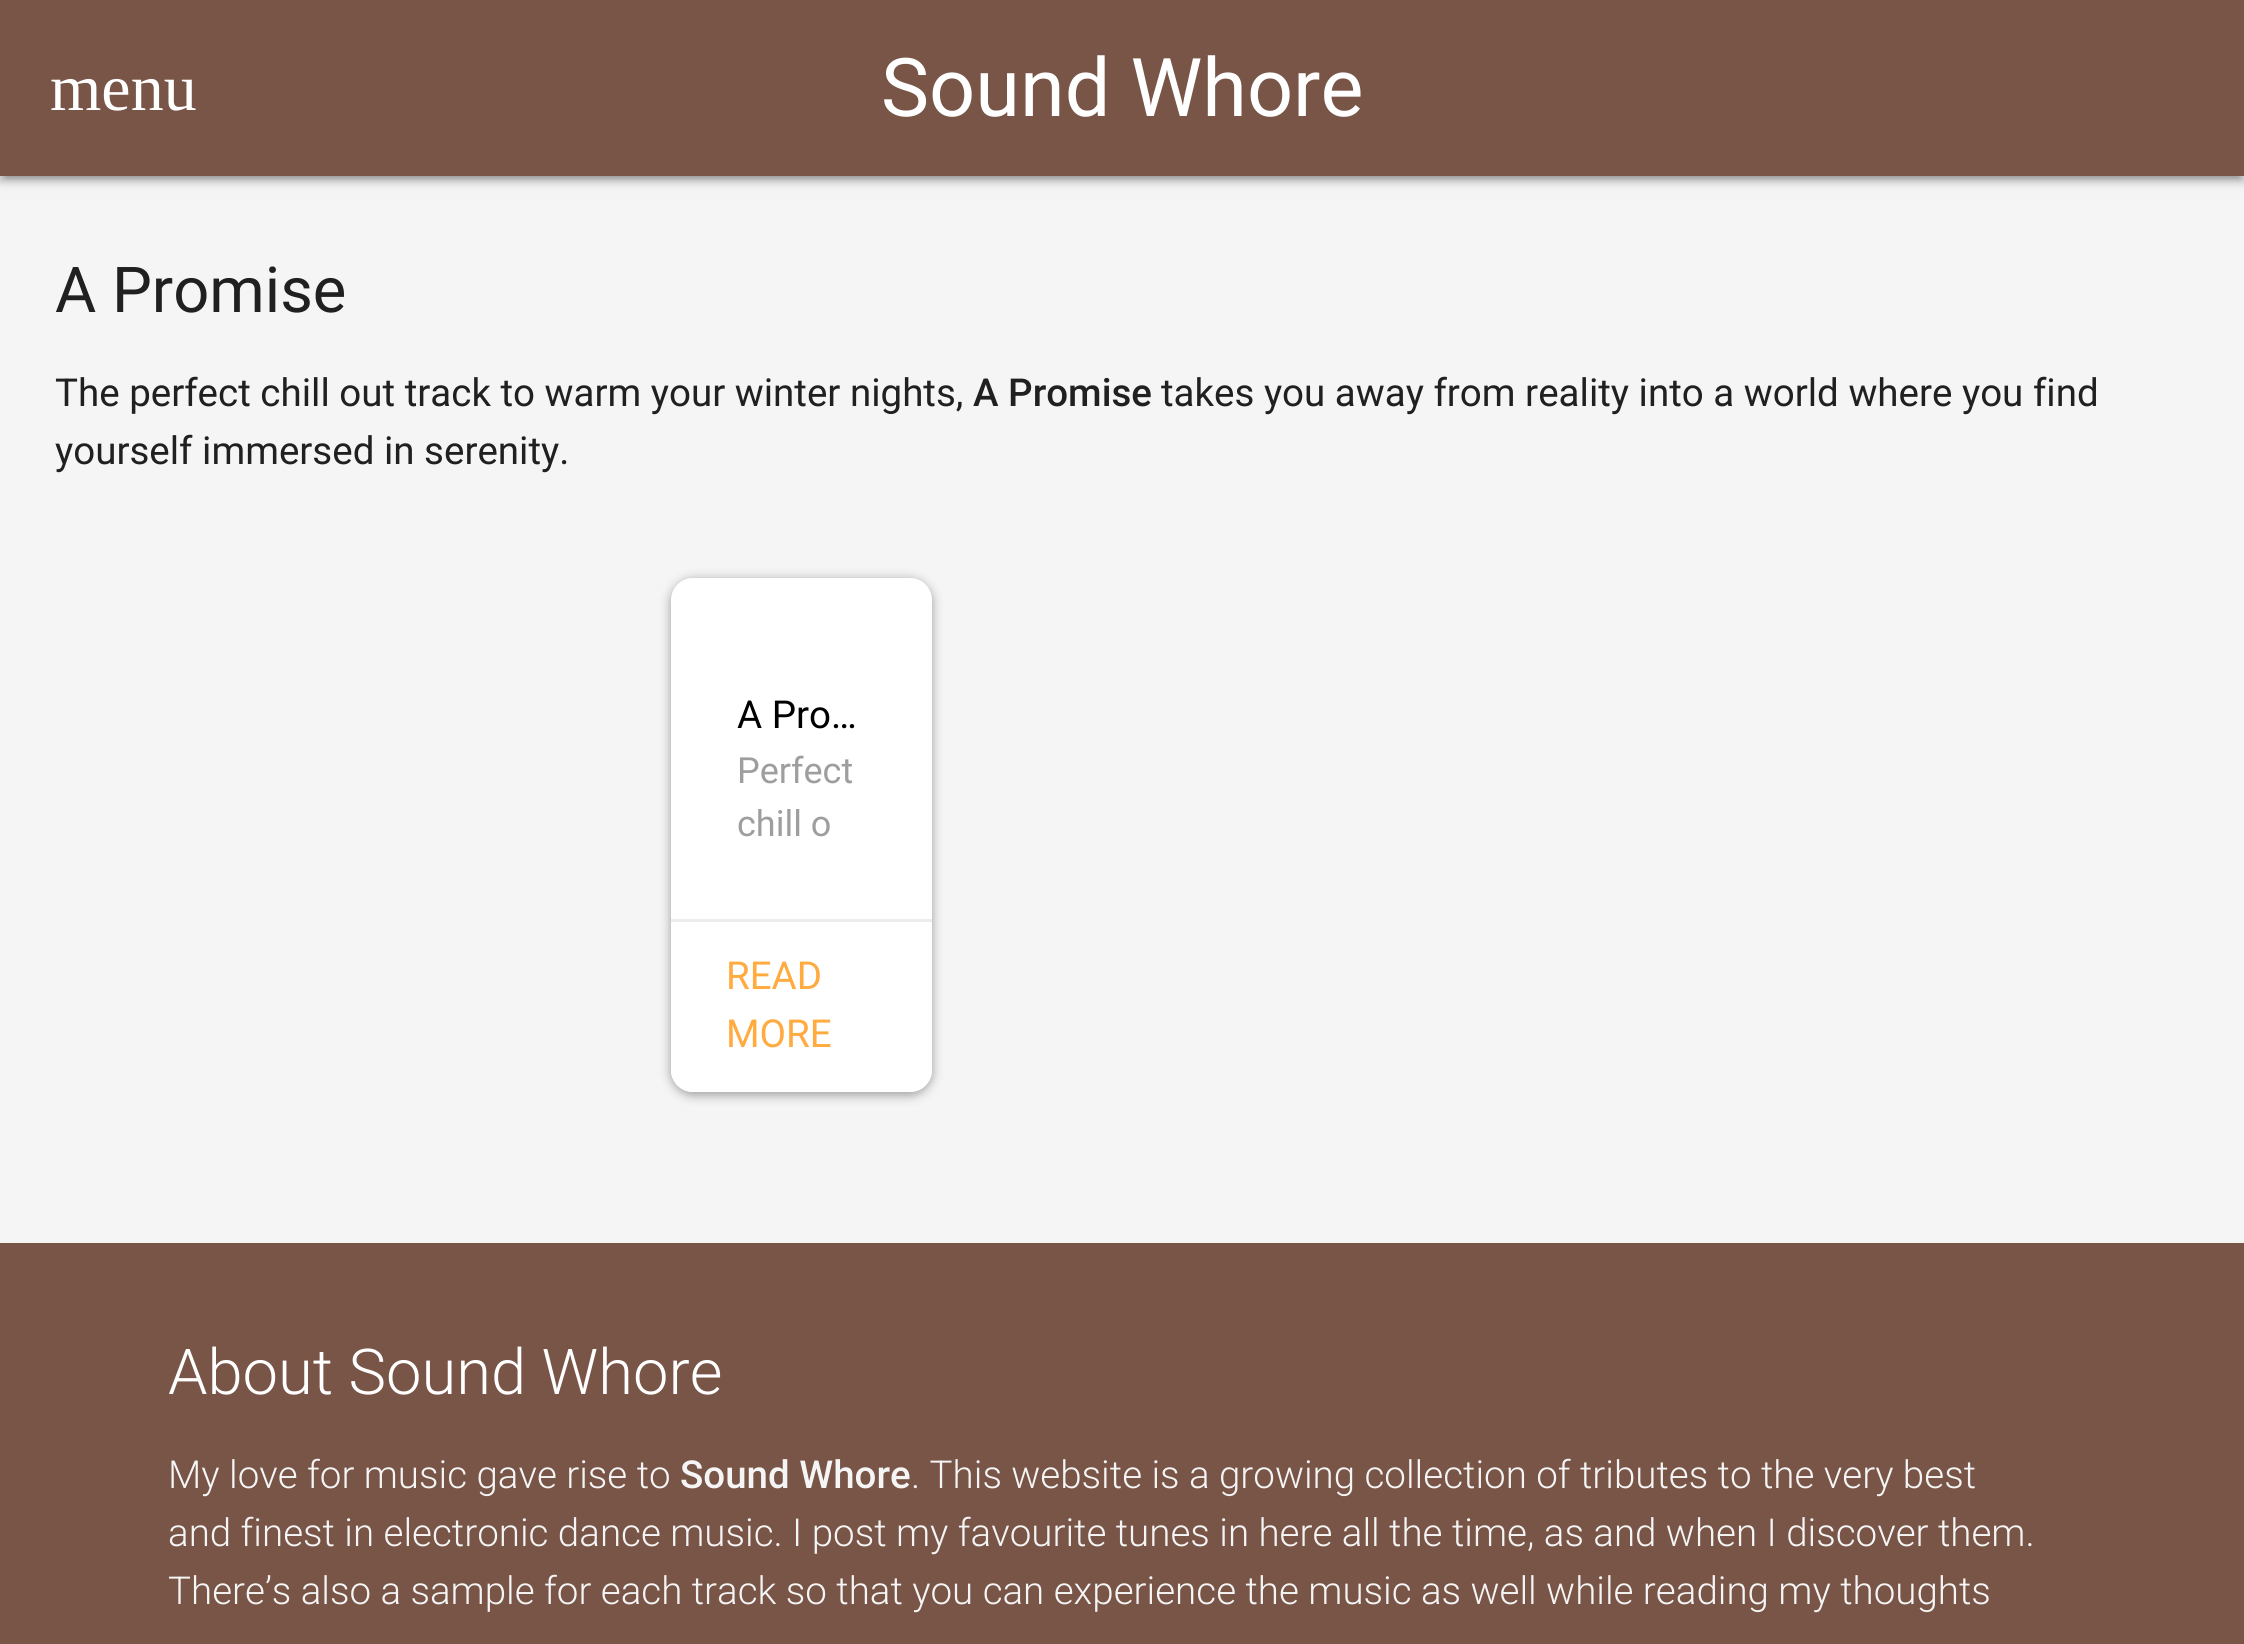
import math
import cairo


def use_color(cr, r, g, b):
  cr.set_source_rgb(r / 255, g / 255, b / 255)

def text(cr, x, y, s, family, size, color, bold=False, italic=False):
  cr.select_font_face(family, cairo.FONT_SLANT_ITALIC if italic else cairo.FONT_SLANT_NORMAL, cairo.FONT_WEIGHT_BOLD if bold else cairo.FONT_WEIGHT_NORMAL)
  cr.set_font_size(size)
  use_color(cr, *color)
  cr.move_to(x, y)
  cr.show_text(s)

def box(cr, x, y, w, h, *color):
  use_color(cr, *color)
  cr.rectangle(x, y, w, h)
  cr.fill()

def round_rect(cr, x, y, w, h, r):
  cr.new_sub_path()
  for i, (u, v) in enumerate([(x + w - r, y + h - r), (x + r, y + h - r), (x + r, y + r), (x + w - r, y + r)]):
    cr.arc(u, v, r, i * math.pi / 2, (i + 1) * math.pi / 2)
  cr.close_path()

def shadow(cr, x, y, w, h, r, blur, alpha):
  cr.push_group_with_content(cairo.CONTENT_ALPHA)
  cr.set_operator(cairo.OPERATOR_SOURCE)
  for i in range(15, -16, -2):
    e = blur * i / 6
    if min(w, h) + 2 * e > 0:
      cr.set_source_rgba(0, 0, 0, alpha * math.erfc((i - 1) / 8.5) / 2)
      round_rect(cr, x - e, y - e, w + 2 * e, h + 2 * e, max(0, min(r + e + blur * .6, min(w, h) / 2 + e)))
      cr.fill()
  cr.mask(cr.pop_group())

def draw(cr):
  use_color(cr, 245, 245, 245)
  cr.paint()
  use_color(cr, 0, 0, 0)
  shadow(cr, 0, 3, 2244, 176, 0, 7, 0.2)
  shadow(cr, 6, 14, 2233, 165, 0, 1.5, 0.12)
  shadow(cr, 0, 6, 2244, 176, 0, 3, 0.14)
  box(cr, 0, 0, 2244, 176, 121, 85, 72)
  use_color(cr, 0, 0, 0)
  shadow(cr, 671, 580, 261, 515, 22, 5.5, 0.37)
  use_color(cr, 255, 255, 255)
  round_rect(cr, 671, 578, 261, 514, 22)
  cr.fill()
  cr.new_path()
  cr.move_to(671, 919)
  cr.line_to(932, 919)
  cr.line_to(932, 1070)
  cr.curve_to(932, 1082, 922, 1092, 910, 1092)
  cr.line_to(693, 1092)
  cr.curve_to(681, 1092, 671, 1082, 671, 1070)
  cr.close_path()
  cr.fill()
  box(cr, 671, 919, 261, 3, 236, 236, 236)
  box(cr, 0, 1243, 2244, 401, 121, 85, 72)
  text(cr, 50, 110, "menu", "Liberation Serif", 66, (255, 255, 255))
  text(cr, 881, 116, "Sound Whore", "Roboto", 81, (255, 255, 255))
  text(cr, 55, 312, "A Promise", "Roboto", 63.25, (32, 32, 32))
  text(cr, 55, 406, "The perfect chill out track to warm your winter nights,", "Roboto", 38.5, (32, 32, 32))
  text(cr, 973, 406, "A Promise", "Roboto Medium", 38.5, (32, 32, 32))
  text(cr, 1161, 406, "takes you away from reality into a world where you find", "Roboto", 38.5, (32, 32, 32))
  text(cr, 55, 464, "yourself immersed in serenity.", "Roboto", 38.5, (32, 32, 32))
  text(cr, 737, 728, "A Pro…", "Roboto", 38.5, (0, 0, 0))
  text(cr, 737, 783, "Perfect", "Roboto", 36, (158, 158, 158))
  text(cr, 737, 836, "chill o", "Roboto", 36, (158, 158, 158))
  gradient = cairo.LinearGradient(828, 825, 866, 825)
  gradient.add_color_stop_rgba(0, 1, 1, 1, 0)
  gradient.add_color_stop_rgba(0.5, 1, 1, 1, 1)
  cr.set_source(gradient)
  cr.rectangle(828, 825, 1, 3)
  cr.fill()
  text(cr, 726, 989, "READ", "Roboto", 38.5, (255, 171, 64))
  text(cr, 726, 1047, "MORE", "Roboto", 38.5, (255, 171, 64))
  text(cr, 168, 1394, "About Sound Whore", "Roboto Light", 63.25, (255, 255, 255))
  text(cr, 168, 1488, "My love for music gave rise to", "Roboto Light", 38.5, (245, 245, 245))
  text(cr, 680, 1488, "Sound Whore", "Roboto Medium", 38.5, (245, 245, 245))
  text(cr, 911, 1488, ". This website is a growing collection of tributes to the very best", "Roboto Light", 38.5, (245, 245, 245))
  text(cr, 168, 1546, "and finest in electronic dance music. I post my favourite tunes in here all the time, as and when I discover them.", "Roboto Light", 38.5, (245, 245, 245))
  text(cr, 168, 1604, "There’s also a sample for each track so that you can experience the music as well while reading my thoughts", "Roboto Light", 38.5, (245, 245, 245))


surface = cairo.ImageSurface(cairo.FORMAT_RGB24, 2244, 1644)
cr = cairo.Context(surface)
options = cairo.FontOptions()
options.set_hint_metrics(cairo.HINT_METRICS_OFF)
options.set_hint_style(cairo.HINT_STYLE_NONE)
cr.set_font_options(options)
cr.set_miter_limit(4)
draw(cr)
surface.write_to_png("out.png")
